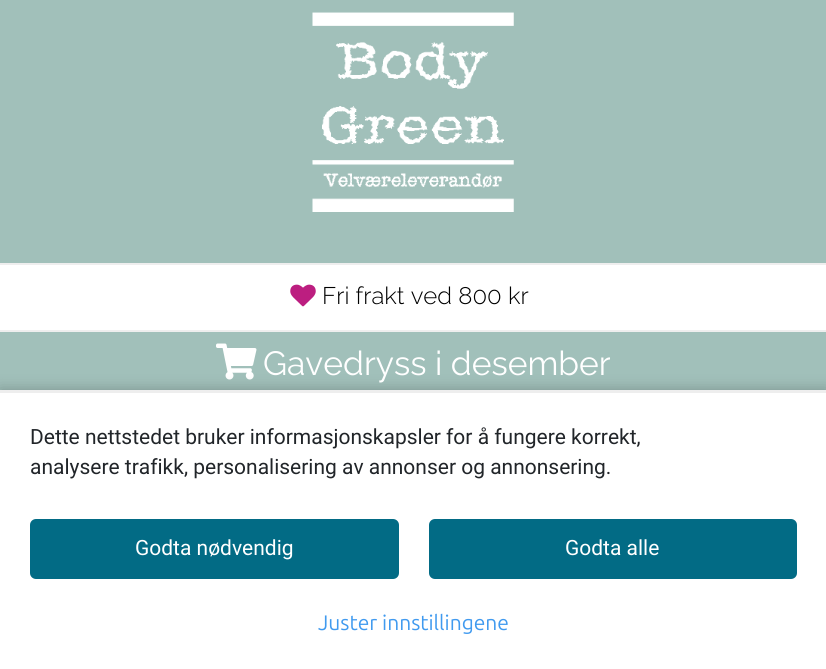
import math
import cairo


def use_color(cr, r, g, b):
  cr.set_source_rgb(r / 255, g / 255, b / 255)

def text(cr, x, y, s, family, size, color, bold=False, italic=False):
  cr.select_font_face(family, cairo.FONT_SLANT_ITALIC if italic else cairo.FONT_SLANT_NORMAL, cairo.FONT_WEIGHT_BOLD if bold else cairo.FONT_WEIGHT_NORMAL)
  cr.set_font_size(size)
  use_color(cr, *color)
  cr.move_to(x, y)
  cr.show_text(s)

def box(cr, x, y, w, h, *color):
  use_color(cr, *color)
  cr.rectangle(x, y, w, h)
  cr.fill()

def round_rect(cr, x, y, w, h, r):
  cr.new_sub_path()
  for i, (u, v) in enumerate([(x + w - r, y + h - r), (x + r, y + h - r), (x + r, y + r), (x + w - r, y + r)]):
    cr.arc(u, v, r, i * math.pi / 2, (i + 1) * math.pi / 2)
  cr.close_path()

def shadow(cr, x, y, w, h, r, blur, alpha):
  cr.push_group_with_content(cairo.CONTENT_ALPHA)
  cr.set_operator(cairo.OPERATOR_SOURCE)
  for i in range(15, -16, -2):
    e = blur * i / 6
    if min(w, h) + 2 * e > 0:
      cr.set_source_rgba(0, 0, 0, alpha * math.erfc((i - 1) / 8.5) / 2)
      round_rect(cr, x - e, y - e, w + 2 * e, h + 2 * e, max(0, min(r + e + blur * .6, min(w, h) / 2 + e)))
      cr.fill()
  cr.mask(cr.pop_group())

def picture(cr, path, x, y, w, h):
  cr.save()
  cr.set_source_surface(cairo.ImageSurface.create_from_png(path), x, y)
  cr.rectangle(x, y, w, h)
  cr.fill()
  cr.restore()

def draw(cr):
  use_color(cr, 255, 255, 255)
  cr.paint()
  box(cr, 0, 0, 826, 263, 161, 192, 186)
  picture(cr, "img_01.png", 312, 12, 202, 200)
  box(cr, 0, 263, 826, 2, 238, 238, 238)
  box(cr, 0, 330, 826, 2, 238, 238, 238)
  picture(cr, "img_02.png", 290, 284, 26, 23)
  box(cr, 0, 332, 826, 58, 161, 192, 186)
  picture(cr, "img_03.png", 216, 343, 41, 37)
  use_color(cr, 0, 0, 0)
  shadow(cr, 0, 390, 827, 279, 0, 7.5, 0.25)
  box(cr, 0, 393, 826, 276, 255, 255, 255)
  box(cr, 0, 390, 826, 3, 238, 238, 238)
  use_color(cr, 2, 107, 133)
  round_rect(cr, 30, 519, 369, 60, 6)
  cr.fill()
  round_rect(cr, 429, 519, 368, 60, 6)
  cr.fill()
  text(cr, 322, 304, "Fri frakt ved 800 kr", "Raleway Light", 24, (0, 0, 0))
  text(cr, 263, 375, "Gavedryss i desember", "Raleway", 33.6, (255, 255, 255))
  text(cr, 30, 444, "Dette nettstedet bruker informasjonskapsler for å fungere korrekt,", "Roboto", 21, (33, 37, 41))
  text(cr, 30, 474, "analysere trafikk, personalisering av annonser og annonsering.", "Roboto", 21, (33, 37, 41))
  text(cr, 135, 555, "Godta nødvendig", "Roboto", 21, (255, 255, 255))
  text(cr, 565, 555, "Godta alle", "Roboto", 21, (255, 255, 255))
  text(cr, 318, 630, "Juster innstillingene", "Ubuntu", 21, (64, 154, 239))


surface = cairo.ImageSurface(cairo.FORMAT_RGB24, 826, 669)
cr = cairo.Context(surface)
options = cairo.FontOptions()
options.set_hint_metrics(cairo.HINT_METRICS_OFF)
options.set_hint_style(cairo.HINT_STYLE_NONE)
cr.set_font_options(options)
cr.set_miter_limit(4)
draw(cr)
surface.write_to_png("out.png")
